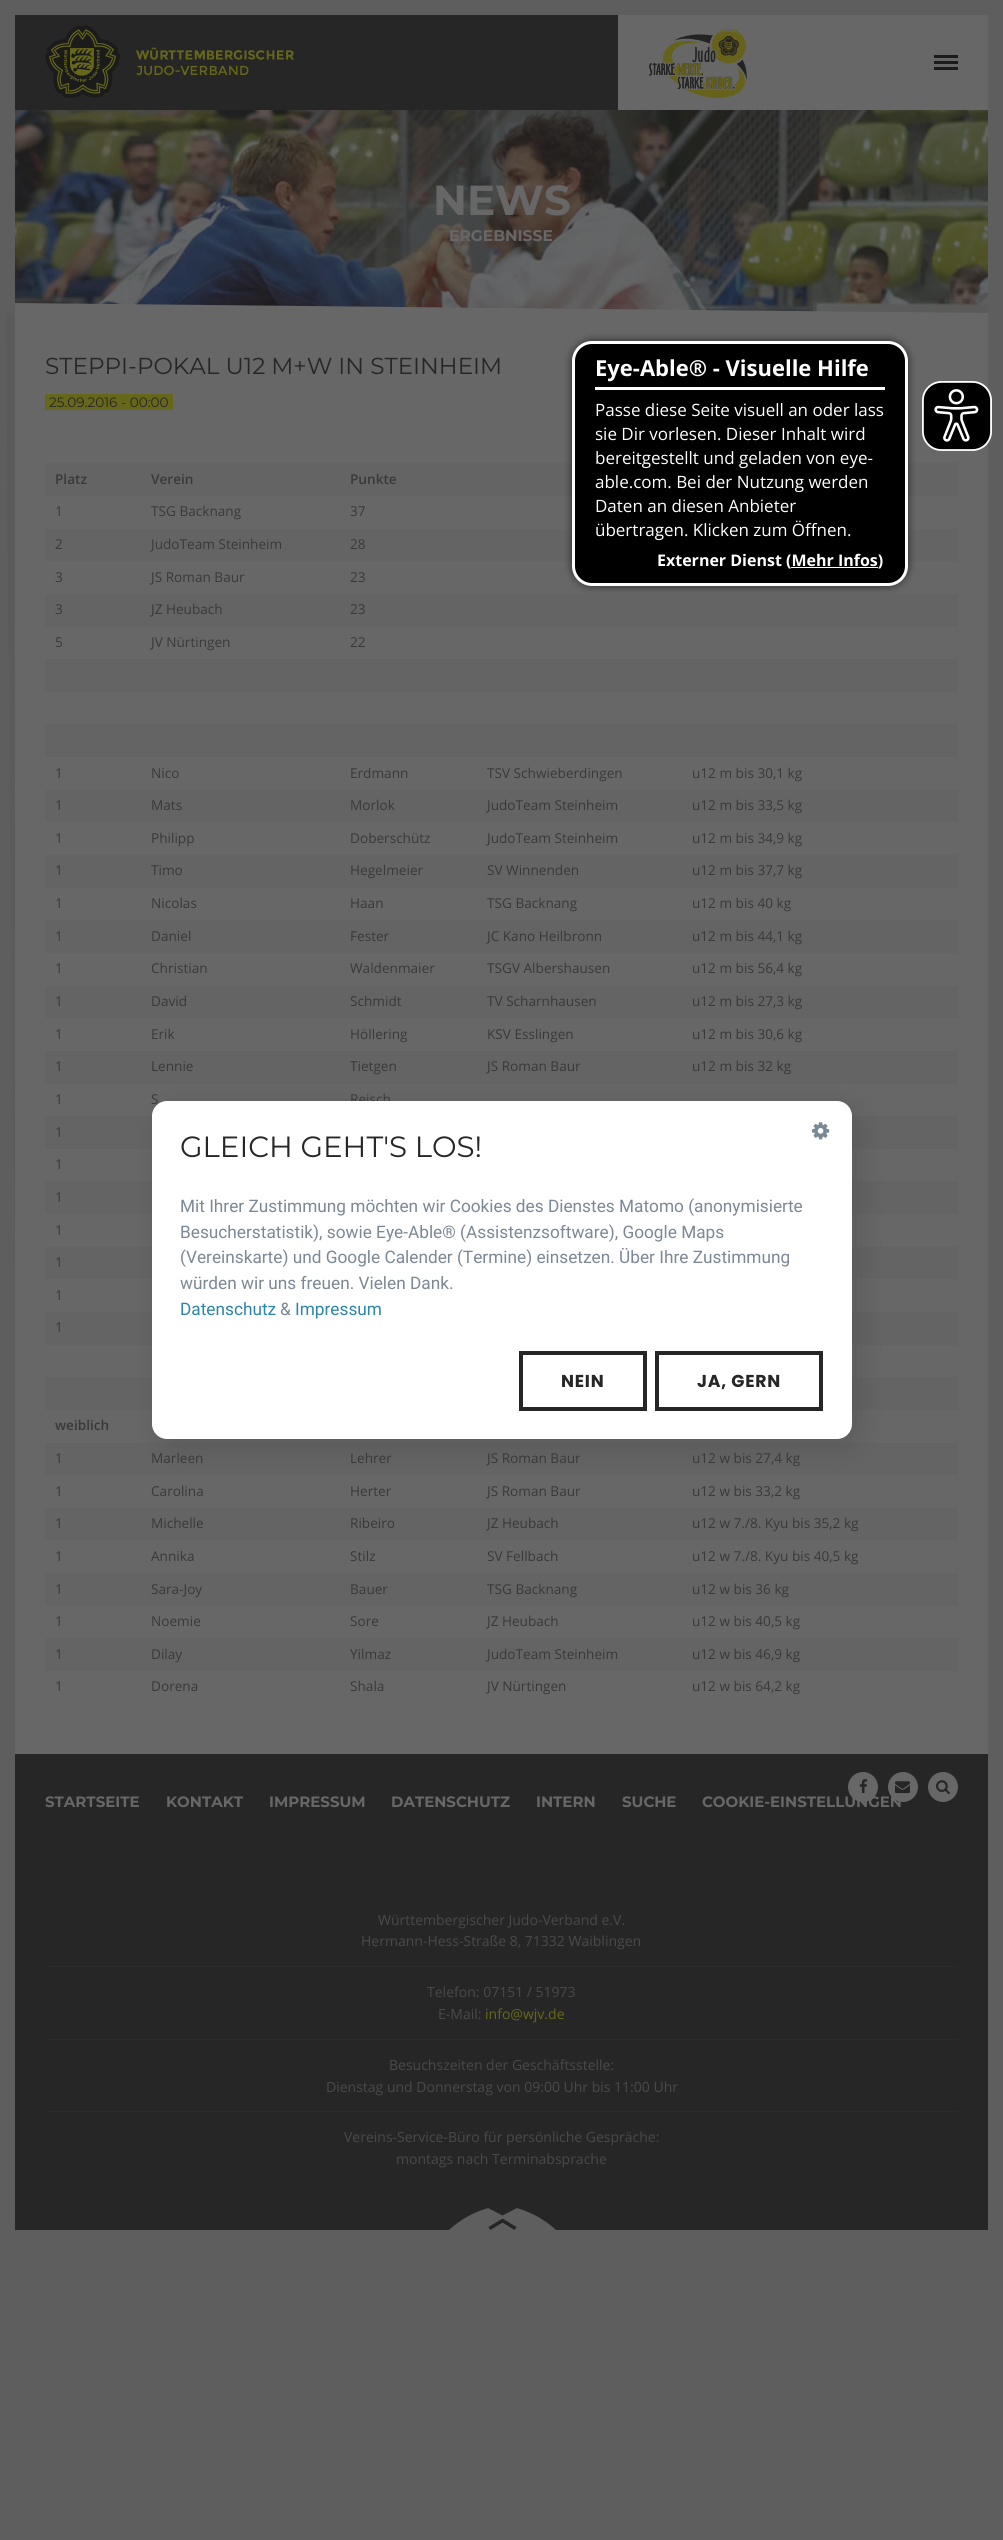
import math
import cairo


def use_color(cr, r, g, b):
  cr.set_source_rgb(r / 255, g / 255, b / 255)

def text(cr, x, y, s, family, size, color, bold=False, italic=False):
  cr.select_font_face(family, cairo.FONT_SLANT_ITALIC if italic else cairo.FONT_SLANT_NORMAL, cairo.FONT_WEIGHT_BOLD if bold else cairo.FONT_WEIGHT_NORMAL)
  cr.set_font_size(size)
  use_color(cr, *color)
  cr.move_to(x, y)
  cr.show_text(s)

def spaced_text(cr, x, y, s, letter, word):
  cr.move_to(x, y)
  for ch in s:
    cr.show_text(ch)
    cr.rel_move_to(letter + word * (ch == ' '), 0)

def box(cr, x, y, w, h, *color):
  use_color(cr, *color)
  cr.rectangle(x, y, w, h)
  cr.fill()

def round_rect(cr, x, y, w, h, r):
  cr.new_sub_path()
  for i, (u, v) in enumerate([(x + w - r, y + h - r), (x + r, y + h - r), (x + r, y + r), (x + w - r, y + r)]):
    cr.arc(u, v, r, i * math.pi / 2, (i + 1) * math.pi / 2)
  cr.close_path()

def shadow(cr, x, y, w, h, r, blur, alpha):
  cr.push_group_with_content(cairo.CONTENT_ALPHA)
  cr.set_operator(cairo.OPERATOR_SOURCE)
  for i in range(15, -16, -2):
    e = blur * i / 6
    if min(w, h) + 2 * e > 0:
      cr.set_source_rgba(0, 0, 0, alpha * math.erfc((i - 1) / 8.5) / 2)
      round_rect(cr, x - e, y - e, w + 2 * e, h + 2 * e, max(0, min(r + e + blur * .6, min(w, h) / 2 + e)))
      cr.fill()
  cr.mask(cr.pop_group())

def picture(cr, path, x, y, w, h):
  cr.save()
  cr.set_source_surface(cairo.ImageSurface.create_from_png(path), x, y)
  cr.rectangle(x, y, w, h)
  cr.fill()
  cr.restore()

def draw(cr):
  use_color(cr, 94, 94, 94)
  cr.paint()
  box(cr, 15, 15, 603, 95, 38, 38, 38)
  picture(cr, "img_01.png", 45, 25, 249, 73)
  box(cr, 618, 15, 370, 95, 103, 103, 103)
  picture(cr, "img_02.png", 649, 29, 98, 69)
  box(cr, 934, 55, 24, 3, 27, 27, 27)
  box(cr, 934, 61, 24, 3, 27, 27, 27)
  box(cr, 934, 67, 24, 3, 27, 27, 27)
  picture(cr, "img_03.png", 15, 110, 973, 203)
  box(cr, 15, 313, 973, 1441, 103, 103, 103)
  picture(cr, "img_04.png", 15, 303, 964, 10)
  picture(cr, "img_05.png", 5, 313, 10, 963)
  box(cr, 45, 394, 128, 16, 103, 103, 27)
  box(cr, 45, 463, 913, 33, 100, 100, 100)
  box(cr, 45, 529, 913, 32, 100, 100, 100)
  box(cr, 45, 594, 913, 33, 100, 100, 100)
  box(cr, 45, 659, 913, 33, 100, 100, 100)
  box(cr, 45, 724, 913, 33, 100, 100, 100)
  box(cr, 45, 790, 913, 32, 100, 100, 100)
  box(cr, 45, 855, 913, 33, 100, 100, 100)
  box(cr, 45, 920, 913, 33, 100, 100, 100)
  box(cr, 45, 986, 913, 32, 100, 100, 100)
  box(cr, 45, 1051, 913, 33, 100, 100, 100)
  box(cr, 45, 1116, 913, 33, 100, 100, 100)
  box(cr, 45, 1181, 913, 33, 100, 100, 100)
  box(cr, 45, 1247, 913, 32, 100, 100, 100)
  box(cr, 45, 1312, 913, 33, 100, 100, 100)
  box(cr, 45, 1377, 913, 33, 100, 100, 100)
  box(cr, 45, 1443, 913, 32, 100, 100, 100)
  box(cr, 45, 1508, 913, 32, 100, 100, 100)
  box(cr, 45, 1573, 913, 33, 100, 100, 100)
  box(cr, 45, 1638, 913, 33, 100, 100, 100)
  box(cr, 15, 1754, 973, 476, 38, 38, 38)
  use_color(cr, 103, 103, 103)
  cr.arc(863, 1787, 15, 0, 2 * math.pi)
  cr.fill()
  picture(cr, "img_06.png", 859, 1779, 9, 15)
  cr.arc(903, 1787, 15, 0, 2 * math.pi)
  cr.fill()
  picture(cr, "img_07.png", 895, 1781, 15, 13)
  cr.arc(943, 1787, 15, 0, 2 * math.pi)
  cr.fill()
  picture(cr, "img_08.png", 936, 1780, 14, 15)
  box(cr, 45, 1966, 913, 1, 42, 42, 42)
  box(cr, 45, 2039, 913, 1, 42, 42, 42)
  box(cr, 45, 2111, 913, 1, 42, 42, 42)
  picture(cr, "img_09.png", 449, 2208, 107, 22)
  use_color(cr, 0, 0, 0)
  shadow(cr, 571, 340, 338, 247, 21, 4, 0.5)
  use_color(cr, 0, 0, 0)
  round_rect(cr, 573.5, 342.5, 333, 242, 18.5)
  cr.fill_preserve()
  use_color(cr, 255, 255, 255)
  cr.set_line_width(3)
  cr.stroke()
  box(cr, 595, 387, 290, 3, 255, 255, 255)
  box(cr, 791, 567, 87, 1, 255, 255, 255)
  picture(cr, "img_10.png", 922, 381, 70, 70)
  use_color(cr, 0, 0, 0)
  shadow(cr, 160, 1109, 700, 338, 15, 15, 0.12)
  text(cr, 433, 215, "NEWS", "Montserrat", 42, (103, 103, 103), bold=True)
  text(cr, 449, 241, "ERGEBNISSE", "Montserrat", 15.5, (103, 103, 103), bold=True)
  text(cr, 45, 374, "STEPPI-POKAL U12 M+W IN STEINHEIM", "Montserrat", 23.1, (38, 38, 38))
  text(cr, 49, 407, "25.09.2016 - 00:00", "Montserrat", 13.6, (38, 38, 38))
  text(cr, 55, 484, "Platz", "Open Sans SemiBold", 13.6, (57, 57, 57))
  text(cr, 151, 484, "Verein", "Open Sans SemiBold", 13.6, (57, 57, 57))
  text(cr, 350, 484, "Punkte", "Open Sans SemiBold", 13.6, (57, 57, 57))
  text(cr, 55, 516, "1", "Open Sans", 13.6, (57, 57, 57))
  text(cr, 151, 516, "TSG Backnang", "Open Sans", 13.6, (57, 57, 57))
  text(cr, 350, 516, "37", "Open Sans", 13.6, (57, 57, 57))
  text(cr, 55, 549, "2", "Open Sans", 13.6, (57, 57, 57))
  text(cr, 151, 549, "JudoTeam Steinheim", "Open Sans", 13.6, (57, 57, 57))
  text(cr, 350, 549, "28", "Open Sans", 13.6, (57, 57, 57))
  text(cr, 55, 582, "3", "Open Sans", 13.6, (57, 57, 57))
  text(cr, 151, 582, "JS Roman Baur", "Open Sans", 13.6, (57, 57, 57))
  text(cr, 350, 582, "23", "Open Sans", 13.6, (57, 57, 57))
  text(cr, 55, 614, "3", "Open Sans", 13.6, (57, 57, 57))
  text(cr, 151, 614, "JZ Heubach", "Open Sans", 13.6, (57, 57, 57))
  text(cr, 350, 614, "23", "Open Sans", 13.6, (57, 57, 57))
  text(cr, 55, 647, "5", "Open Sans", 13.6, (57, 57, 57))
  text(cr, 151, 647, "JV Nürtingen", "Open Sans", 13.6, (57, 57, 57))
  text(cr, 350, 647, "22", "Open Sans", 13.6, (57, 57, 57))
  text(cr, 55, 778, "1", "Open Sans", 13.6, (57, 57, 57))
  text(cr, 151, 778, "Nico", "Open Sans", 13.6, (57, 57, 57))
  text(cr, 350, 778, "Erdmann", "Open Sans", 13.6, (57, 57, 57))
  text(cr, 487, 778, "TSV Schwieberdingen", "Open Sans", 13.6, (57, 57, 57))
  text(cr, 692, 778, "u12 m bis 30,1 kg", "Open Sans", 13.6, (57, 57, 57))
  text(cr, 55, 810, "1", "Open Sans", 13.6, (57, 57, 57))
  text(cr, 151, 810, "Mats", "Open Sans", 13.6, (57, 57, 57))
  text(cr, 350, 810, "Morlok", "Open Sans", 13.6, (57, 57, 57))
  text(cr, 487, 810, "JudoTeam Steinheim", "Open Sans", 13.6, (57, 57, 57))
  text(cr, 692, 810, "u12 m bis 33,5 kg", "Open Sans", 13.6, (57, 57, 57))
  text(cr, 55, 843, "1", "Open Sans", 13.6, (57, 57, 57))
  text(cr, 151, 843, "Philipp", "Open Sans", 13.6, (57, 57, 57))
  text(cr, 350, 843, "Doberschütz", "Open Sans", 13.6, (57, 57, 57))
  text(cr, 487, 843, "JudoTeam Steinheim", "Open Sans", 13.6, (57, 57, 57))
  text(cr, 692, 843, "u12 m bis 34,9 kg", "Open Sans", 13.6, (57, 57, 57))
  text(cr, 55, 875, "1", "Open Sans", 13.6, (57, 57, 57))
  text(cr, 151, 875, "Timo", "Open Sans", 13.6, (57, 57, 57))
  text(cr, 350, 875, "Hegelmeier", "Open Sans", 13.6, (57, 57, 57))
  text(cr, 487, 875, "SV Winnenden", "Open Sans", 13.6, (57, 57, 57))
  text(cr, 692, 875, "u12 m bis 37,7 kg", "Open Sans", 13.6, (57, 57, 57))
  text(cr, 55, 908, "1", "Open Sans", 13.6, (57, 57, 57))
  text(cr, 151, 908, "Nicolas", "Open Sans", 13.6, (57, 57, 57))
  text(cr, 350, 908, "Haan", "Open Sans", 13.6, (57, 57, 57))
  text(cr, 487, 908, "TSG Backnang", "Open Sans", 13.6, (57, 57, 57))
  text(cr, 692, 908, "u12 m bis 40 kg", "Open Sans", 13.6, (57, 57, 57))
  text(cr, 55, 941, "1", "Open Sans", 13.6, (57, 57, 57))
  text(cr, 151, 941, "Daniel", "Open Sans", 13.6, (57, 57, 57))
  text(cr, 350, 941, "Fester", "Open Sans", 13.6, (57, 57, 57))
  text(cr, 487, 941, "JC Kano Heilbronn", "Open Sans", 13.6, (57, 57, 57))
  text(cr, 692, 941, "u12 m bis 44,1 kg", "Open Sans", 13.6, (57, 57, 57))
  text(cr, 55, 973, "1", "Open Sans", 13.6, (57, 57, 57))
  text(cr, 151, 973, "Christian", "Open Sans", 13.6, (57, 57, 57))
  text(cr, 350, 973, "Waldenmaier", "Open Sans", 13.6, (57, 57, 57))
  text(cr, 487, 973, "TSGV Albershausen", "Open Sans", 13.6, (57, 57, 57))
  text(cr, 692, 973, "u12 m bis 56,4 kg", "Open Sans", 13.6, (57, 57, 57))
  text(cr, 55, 1006, "1", "Open Sans", 13.6, (57, 57, 57))
  text(cr, 151, 1006, "David", "Open Sans", 13.6, (57, 57, 57))
  text(cr, 350, 1006, "Schmidt", "Open Sans", 13.6, (57, 57, 57))
  text(cr, 487, 1006, "TV Scharnhausen", "Open Sans", 13.6, (57, 57, 57))
  text(cr, 692, 1006, "u12 m bis 27,3 kg", "Open Sans", 13.6, (57, 57, 57))
  text(cr, 55, 1039, "1", "Open Sans", 13.6, (57, 57, 57))
  text(cr, 151, 1039, "Erik", "Open Sans", 13.6, (57, 57, 57))
  text(cr, 350, 1039, "Höllering", "Open Sans", 13.6, (57, 57, 57))
  text(cr, 487, 1039, "KSV Esslingen", "Open Sans", 13.6, (57, 57, 57))
  text(cr, 692, 1039, "u12 m bis 30,6 kg", "Open Sans", 13.6, (57, 57, 57))
  text(cr, 55, 1071, "1", "Open Sans", 13.6, (57, 57, 57))
  text(cr, 151, 1071, "Lennie", "Open Sans", 13.6, (57, 57, 57))
  text(cr, 350, 1071, "Tietgen", "Open Sans", 13.6, (57, 57, 57))
  text(cr, 487, 1071, "JS Roman Baur", "Open Sans", 13.6, (57, 57, 57))
  text(cr, 692, 1071, "u12 m bis 32 kg", "Open Sans", 13.6, (57, 57, 57))
  text(cr, 55, 1104, "1", "Open Sans", 13.6, (57, 57, 57))
  text(cr, 151, 1104, "S", "Open Sans", 13.6, (57, 57, 57))
  text(cr, 350, 1104, "Reisch", "Open Sans", 13.6, (57, 57, 57))
  text(cr, 55, 1137, "1", "Open Sans", 13.6, (57, 57, 57))
  text(cr, 55, 1169, "1", "Open Sans", 13.6, (57, 57, 57))
  text(cr, 55, 1202, "1", "Open Sans", 13.6, (57, 57, 57))
  text(cr, 55, 1235, "1", "Open Sans", 13.6, (57, 57, 57))
  text(cr, 55, 1267, "1", "Open Sans", 13.6, (57, 57, 57))
  text(cr, 55, 1300, "1", "Open Sans", 13.6, (57, 57, 57))
  text(cr, 55, 1332, "1", "Open Sans", 13.6, (57, 57, 57))
  text(cr, 55, 1430, "weiblich", "Open Sans SemiBold", 13.6, (57, 57, 57))
  text(cr, 55, 1463, "1", "Open Sans", 13.6, (57, 57, 57))
  text(cr, 151, 1463, "Marleen", "Open Sans", 13.6, (57, 57, 57))
  text(cr, 350, 1463, "Lehrer", "Open Sans", 13.6, (57, 57, 57))
  text(cr, 487, 1463, "JS Roman Baur", "Open Sans", 13.6, (57, 57, 57))
  text(cr, 692, 1463, "u12 w bis 27,4 kg", "Open Sans", 13.6, (57, 57, 57))
  text(cr, 55, 1496, "1", "Open Sans", 13.6, (57, 57, 57))
  text(cr, 151, 1496, "Carolina", "Open Sans", 13.6, (57, 57, 57))
  text(cr, 350, 1496, "Herter", "Open Sans", 13.6, (57, 57, 57))
  text(cr, 487, 1496, "JS Roman Baur", "Open Sans", 13.6, (57, 57, 57))
  text(cr, 692, 1496, "u12 w bis 33,2 kg", "Open Sans", 13.6, (57, 57, 57))
  text(cr, 55, 1528, "1", "Open Sans", 13.6, (57, 57, 57))
  text(cr, 151, 1528, "Michelle", "Open Sans", 13.6, (57, 57, 57))
  text(cr, 350, 1528, "Ribeiro", "Open Sans", 13.6, (57, 57, 57))
  text(cr, 487, 1528, "JZ Heubach", "Open Sans", 13.6, (57, 57, 57))
  text(cr, 692, 1528, "u12 w 7./8. Kyu bis 35,2 kg", "Open Sans", 13.6, (57, 57, 57))
  text(cr, 55, 1561, "1", "Open Sans", 13.6, (57, 57, 57))
  text(cr, 151, 1561, "Annika", "Open Sans", 13.6, (57, 57, 57))
  text(cr, 350, 1561, "Stilz", "Open Sans", 13.6, (57, 57, 57))
  text(cr, 487, 1561, "SV Fellbach", "Open Sans", 13.6, (57, 57, 57))
  text(cr, 692, 1561, "u12 w 7./8. Kyu bis 40,5 kg", "Open Sans", 13.6, (57, 57, 57))
  text(cr, 55, 1594, "1", "Open Sans", 13.6, (57, 57, 57))
  text(cr, 151, 1594, "Sara-Joy", "Open Sans", 13.6, (57, 57, 57))
  text(cr, 350, 1594, "Bauer", "Open Sans", 13.6, (57, 57, 57))
  text(cr, 487, 1594, "TSG Backnang", "Open Sans", 13.6, (57, 57, 57))
  text(cr, 692, 1594, "u12 w bis 36 kg", "Open Sans", 13.6, (57, 57, 57))
  text(cr, 55, 1626, "1", "Open Sans", 13.6, (57, 57, 57))
  text(cr, 151, 1626, "Noemie", "Open Sans", 13.6, (57, 57, 57))
  text(cr, 350, 1626, "Sore", "Open Sans", 13.6, (57, 57, 57))
  text(cr, 487, 1626, "JZ Heubach", "Open Sans", 13.6, (57, 57, 57))
  text(cr, 692, 1626, "u12 w bis 40,5 kg", "Open Sans", 13.6, (57, 57, 57))
  text(cr, 55, 1659, "1", "Open Sans", 13.6, (57, 57, 57))
  text(cr, 151, 1659, "Dilay", "Open Sans", 13.6, (57, 57, 57))
  text(cr, 350, 1659, "Yilmaz", "Open Sans", 13.6, (57, 57, 57))
  text(cr, 487, 1659, "JudoTeam Steinheim", "Open Sans", 13.6, (57, 57, 57))
  text(cr, 692, 1659, "u12 w bis 46,9 kg", "Open Sans", 13.6, (57, 57, 57))
  text(cr, 55, 1691, "1", "Open Sans", 13.6, (57, 57, 57))
  text(cr, 151, 1691, "Dorena", "Open Sans", 13.6, (57, 57, 57))
  text(cr, 350, 1691, "Shala", "Open Sans", 13.6, (57, 57, 57))
  text(cr, 487, 1691, "JV Nürtingen", "Open Sans", 13.6, (57, 57, 57))
  text(cr, 692, 1691, "u12 w bis 64,2 kg", "Open Sans", 13.6, (57, 57, 57))
  text(cr, 45, 1807, "STARTSEITE", "Montserrat", 15, (103, 103, 103), bold=True)
  text(cr, 166, 1807, "KONTAKT", "Montserrat", 15, (103, 103, 103), bold=True)
  text(cr, 269, 1807, "IMPRESSUM", "Montserrat", 15, (103, 103, 103), bold=True)
  text(cr, 391, 1807, "DATENSCHUTZ", "Montserrat", 15, (103, 103, 103), bold=True)
  text(cr, 536, 1807, "INTERN", "Montserrat", 15, (103, 103, 103), bold=True)
  text(cr, 622, 1807, "SUCHE", "Montserrat", 15, (103, 103, 103), bold=True)
  text(cr, 702, 1807, "COOKIE-EINSTELLUNGEN", "Montserrat", 15, (103, 103, 103), bold=True)
  text(cr, 378, 1925, "Württembergischer Judo-Verband e.V.", "Open Sans", 14, (73, 73, 73))
  text(cr, 361, 1946, "Hermann-Hess-Straße 8, 71332 Waiblingen", "Open Sans", 14, (73, 73, 73))
  text(cr, 427, 1997, "Telefon: 07151 / 51973", "Open Sans", 14, (73, 73, 73))
  text(cr, 438, 2019, "E-Mail:", "Open Sans", 14, (73, 73, 73))
  text(cr, 485, 2019, "info@wjv.de", "Open Sans", 14, (103, 103, 27))
  text(cr, 389, 2070, "Besuchszeiten der Geschäftsstelle:", "Open Sans", 14, (73, 73, 73))
  text(cr, 326, 2092, "Dienstag und Donnerstag von 09:00 Uhr bis 11:00 Uhr", "Open Sans", 14, (73, 73, 73))
  text(cr, 344, 2142, "Vereins-Service-Büro für persönliche Gespräche:", "Open Sans", 14, (73, 73, 73))
  text(cr, 396, 2164, "montags nach Terminabsprache", "Open Sans", 14, (73, 73, 73))
  text(cr, 595, 376, "Eye-Able® - Visuelle Hilfe", "Open Sans", 22, (255, 255, 255), bold=True)
  text(cr, 595, 416, "Passe diese Seite visuell an oder lass", "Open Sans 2", 17, (255, 255, 255))
  text(cr, 595, 440, "sie Dir vorlesen. Dieser Inhalt wird", "Open Sans 2", 17, (255, 255, 255))
  text(cr, 595, 464, "bereitgestellt und geladen von eye-", "Open Sans 2", 17, (255, 255, 255))
  text(cr, 595, 488, "able.com. Bei der Nutzung werden", "Open Sans 2", 17, (255, 255, 255))
  text(cr, 595, 512, "Daten an diesen Anbieter", "Open Sans 2", 17, (255, 255, 255))
  text(cr, 595, 536, "übertragen. Klicken zum Öffnen.", "Open Sans 2", 17, (255, 255, 255))
  text(cr, 657, 566, "Externer Dienst (Mehr Infos)", "Open Sans", 16, (255, 255, 255), bold=True)
  round_rect(cr, 152, 1101, 700, 338, 15)
  cr.fill()
  text(cr, 180, 1157, "GLEICH GEHT'S LOS!", "Montserrat", 29.25, (38, 38, 38))
  text(cr, 180, 1212, "Mit Ihrer Zustimmung möchten wir Cookies des Dienstes Matomo (anonymisierte", "Roboto", 17.25, (123, 136, 149))
  text(cr, 180, 1238, "Besucherstatistik), sowie Eye-Able® (Assistenzsoftware), Google Maps", "Roboto", 17.25, (123, 136, 149))
  text(cr, 180, 1263, "(Vereinskarte) und Google Calender (Termine) einsetzen. Über Ihre Zustimmung", "Roboto", 17.25, (123, 136, 149))
  text(cr, 180, 1289, "würden wir uns freuen. Vielen Dank.", "Roboto", 17.25, (123, 136, 149))
  text(cr, 180, 1315, "Datenschutz", "Roboto", 17.25, (43, 133, 170))
  text(cr, 280, 1315, "&", "Roboto", 17.25, (123, 136, 149))
  text(cr, 295, 1315, "Impressum", "Roboto", 17.25, (43, 133, 170))
  picture(cr, "img_11.png", 812, 1122, 18, 18)
  cr.rectangle(521, 1353, 124, 56)
  use_color(cr, 38, 38, 38)
  cr.set_line_width(4)
  cr.stroke()
  cr.select_font_face("Poppins", cairo.FONT_SLANT_NORMAL, cairo.FONT_WEIGHT_BOLD)
  spaced_text(cr, 561, 1387, "NEIN", 0.75, 0)
  cr.rectangle(657, 1353, 164, 56)
  cr.stroke()
  spaced_text(cr, 697, 1387, "JA, GERN", 0.75, 0)


surface = cairo.ImageSurface(cairo.FORMAT_RGB24, 1003, 2540)
cr = cairo.Context(surface)
options = cairo.FontOptions()
options.set_hint_metrics(cairo.HINT_METRICS_OFF)
options.set_hint_style(cairo.HINT_STYLE_NONE)
cr.set_font_options(options)
cr.set_miter_limit(4)
draw(cr)
surface.write_to_png("out.png")
